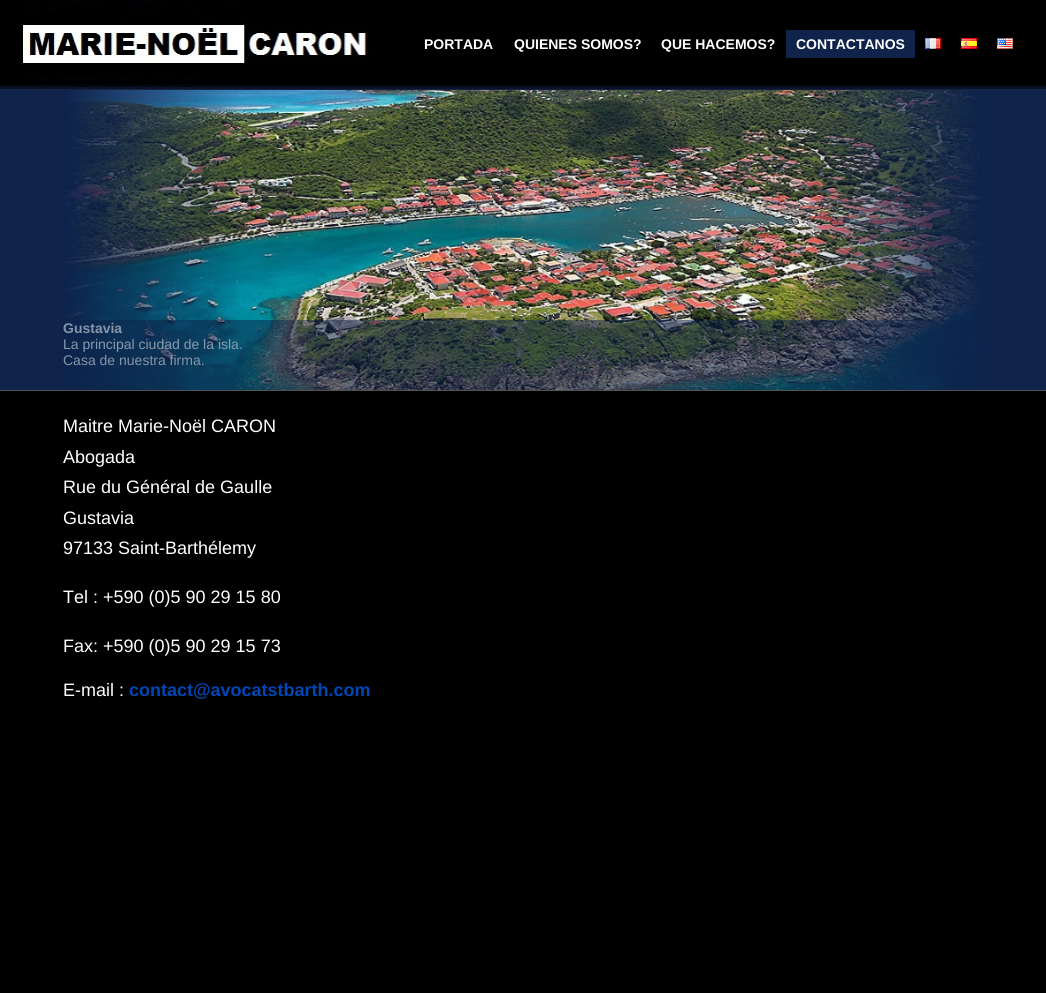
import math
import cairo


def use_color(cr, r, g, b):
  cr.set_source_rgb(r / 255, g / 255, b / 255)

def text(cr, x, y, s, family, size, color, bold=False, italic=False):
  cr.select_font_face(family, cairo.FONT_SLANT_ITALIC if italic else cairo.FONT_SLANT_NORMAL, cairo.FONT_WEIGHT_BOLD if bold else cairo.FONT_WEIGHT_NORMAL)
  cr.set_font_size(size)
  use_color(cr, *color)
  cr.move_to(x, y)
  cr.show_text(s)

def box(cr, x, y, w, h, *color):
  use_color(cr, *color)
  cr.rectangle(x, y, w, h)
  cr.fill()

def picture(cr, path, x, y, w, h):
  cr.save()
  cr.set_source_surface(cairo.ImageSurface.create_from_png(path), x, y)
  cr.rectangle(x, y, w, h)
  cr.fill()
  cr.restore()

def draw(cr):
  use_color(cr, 0, 0, 0)
  cr.paint()
  picture(cr, "img_01.png", 0, 0, 1046, 90)
  picture(cr, "img_02.png", 23, 0, 921, 90)
  box(cr, 786, 30, 129, 28, 15, 35, 75)
  picture(cr, "img_03.png", 925, 38, 16, 11)
  picture(cr, "img_04.png", 961, 38, 16, 11)
  picture(cr, "img_05.png", 997, 38, 16, 11)
  box(cr, 0, 90, 1046, 300, 15, 35, 75)
  picture(cr, "img_08.png", 63, 90, 920, 300)
  picture(cr, "img_06.png", 63, 90, 176, 300)
  picture(cr, "img_07.png", 808, 90, 175, 300)
  cr.set_source_rgba(0.059, 0.137, 0.294, 0.5)
  cr.rectangle(74, 320, 893, 70)
  cr.fill()
  box(cr, 0, 390, 1046, 1, 82, 82, 82)
  text(cr, 424, 49, "PORTADA", "Liberation Sans", 14, (255, 255, 255), bold=True)
  text(cr, 514, 49, "QUIENES SOMOS?", "Liberation Sans", 14, (255, 255, 255), bold=True)
  text(cr, 661, 49, "QUE HACEMOS?", "Liberation Sans", 14, (255, 255, 255), bold=True)
  text(cr, 796, 49, "CONTACTANOS", "Liberation Sans", 14, (255, 255, 255), bold=True)
  text(cr, 63, 333, "Gustavia", "Liberation Sans", 14, (134, 148, 168), bold=True)
  text(cr, 63, 349, "La principal ciudad de la isla.", "Liberation Sans", 14, (134, 154, 172))
  text(cr, 63, 365, "Casa de nuestra firma.", "Liberation Sans", 14, (134, 148, 168))
  text(cr, 63, 432, "Maitre Marie-Noël CARON", "Liberation Sans", 18, (255, 255, 255))
  text(cr, 63, 463, "Abogada", "Liberation Sans", 18, (255, 255, 255))
  text(cr, 63, 493, "Rue du Général de Gaulle", "Liberation Sans", 18, (255, 255, 255))
  text(cr, 63, 524, "Gustavia", "Liberation Sans", 18, (255, 255, 255))
  text(cr, 63, 554, "97133 Saint-Barthélemy", "Liberation Sans", 18, (255, 255, 255))
  text(cr, 63, 603, "Tel : +590 (0)5 90 29 15 80", "Liberation Sans", 18, (255, 255, 255))
  text(cr, 63, 652, "Fax: +590 (0)5 90 29 15 73", "Liberation Sans", 18, (255, 255, 255))
  text(cr, 63, 696, "E-mail :", "Liberation Sans", 18, (255, 255, 255))
  text(cr, 129, 696, "contact@avocatstbarth.com", "Liberation Sans", 18, (0, 70, 180), bold=True)


surface = cairo.ImageSurface(cairo.FORMAT_RGB24, 1046, 993)
cr = cairo.Context(surface)
options = cairo.FontOptions()
options.set_hint_metrics(cairo.HINT_METRICS_OFF)
options.set_hint_style(cairo.HINT_STYLE_NONE)
cr.set_font_options(options)
cr.set_miter_limit(4)
draw(cr)
surface.write_to_png("out.png")
